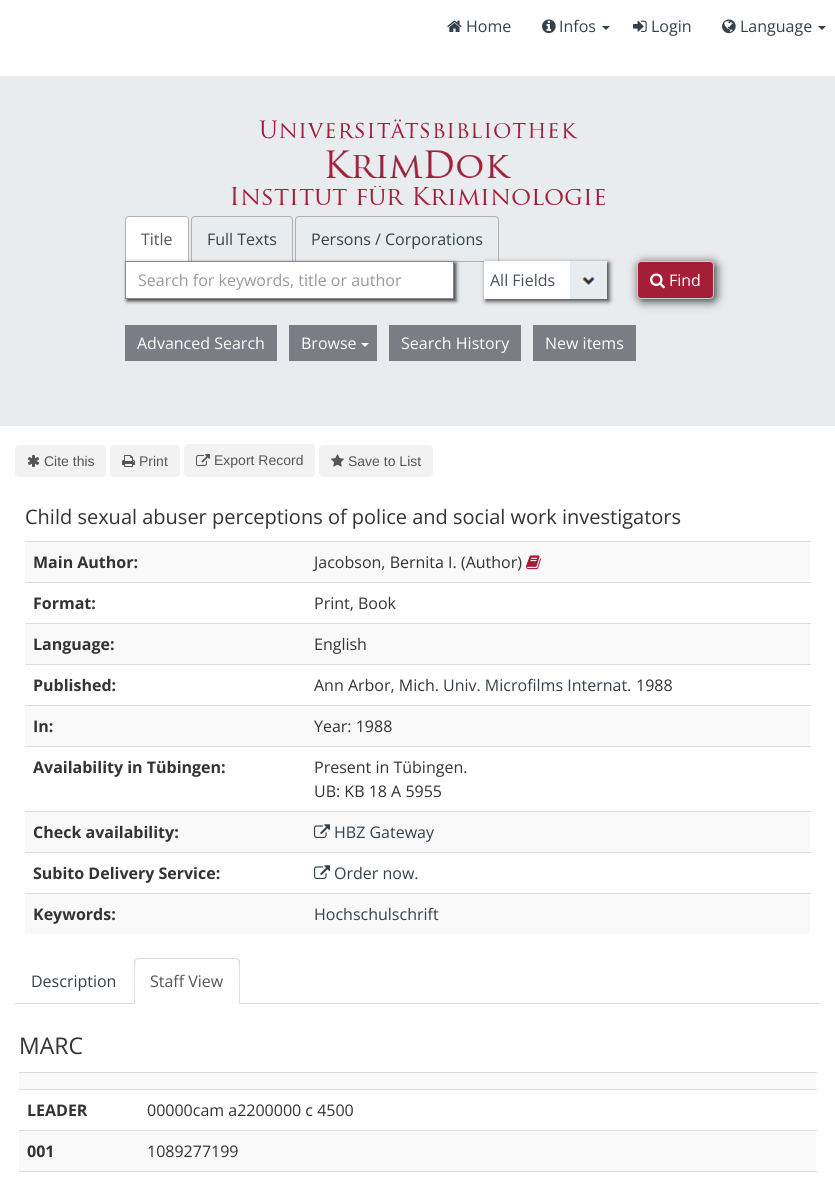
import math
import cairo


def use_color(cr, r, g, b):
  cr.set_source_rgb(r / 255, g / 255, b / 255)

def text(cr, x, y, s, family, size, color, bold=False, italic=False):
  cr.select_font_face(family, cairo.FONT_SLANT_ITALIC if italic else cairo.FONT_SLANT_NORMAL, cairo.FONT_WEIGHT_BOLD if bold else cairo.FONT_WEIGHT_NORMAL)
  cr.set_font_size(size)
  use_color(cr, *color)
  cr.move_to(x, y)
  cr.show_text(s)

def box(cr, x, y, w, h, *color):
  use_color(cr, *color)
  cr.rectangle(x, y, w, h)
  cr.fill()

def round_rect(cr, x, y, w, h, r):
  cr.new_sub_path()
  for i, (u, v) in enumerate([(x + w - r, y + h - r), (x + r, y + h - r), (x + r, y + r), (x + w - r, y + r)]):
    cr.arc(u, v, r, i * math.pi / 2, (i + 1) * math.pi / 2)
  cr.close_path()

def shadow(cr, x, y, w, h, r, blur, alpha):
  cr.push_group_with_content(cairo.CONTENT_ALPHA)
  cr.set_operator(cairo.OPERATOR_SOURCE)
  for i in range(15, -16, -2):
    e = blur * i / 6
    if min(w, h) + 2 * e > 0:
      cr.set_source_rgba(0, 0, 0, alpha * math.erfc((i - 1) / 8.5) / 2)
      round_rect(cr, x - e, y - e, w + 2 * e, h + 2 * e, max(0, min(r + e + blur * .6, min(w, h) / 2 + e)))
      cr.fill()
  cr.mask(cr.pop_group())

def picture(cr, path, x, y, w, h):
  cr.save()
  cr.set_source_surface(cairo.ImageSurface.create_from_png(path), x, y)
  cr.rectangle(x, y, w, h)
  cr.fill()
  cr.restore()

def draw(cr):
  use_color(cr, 255, 255, 255)
  cr.paint()
  picture(cr, "img_01.png", 447, 20, 15, 12)
  picture(cr, "img_02.png", 542, 19, 14, 15)
  use_color(cr, 50, 65, 75)
  cr.new_path()
  cr.move_to(602, 26)
  cr.line_to(610, 26)
  cr.line_to(606, 30)
  cr.close_path()
  cr.fill()
  picture(cr, "img_03.png", 633, 20, 14, 12)
  picture(cr, "img_04.png", 722, 19, 14, 15)
  cr.new_path()
  cr.move_to(818, 26)
  cr.line_to(826, 26)
  cr.line_to(822, 30)
  cr.close_path()
  cr.fill()
  box(cr, 0, 76, 835, 350, 233, 236, 239)
  picture(cr, "img_05.png", 259, 119, 319, 20)
  picture(cr, "img_06.png", 326, 150, 185, 28)
  picture(cr, "img_07.png", 231, 186, 375, 19)
  use_color(cr, 255, 255, 255)
  cr.new_path()
  cr.move_to(129, 216.5)
  cr.line_to(185, 216.5)
  cr.curve_to(187, 216.5, 188.5, 218, 188.5, 220)
  cr.line_to(188.5, 261.5)
  cr.line_to(125.5, 261.5)
  cr.line_to(125.5, 220)
  cr.curve_to(125.5, 218, 127, 216.5, 129, 216.5)
  cr.close_path()
  cr.fill_preserve()
  use_color(cr, 179, 175, 175)
  cr.set_line_width(1)
  cr.stroke()
  cr.new_path()
  cr.move_to(195, 216.5)
  cr.line_to(289, 216.5)
  cr.curve_to(291, 216.5, 292.5, 218, 292.5, 220)
  cr.line_to(292.5, 261.5)
  cr.line_to(191.5, 261.5)
  cr.line_to(191.5, 220)
  cr.curve_to(191.5, 218, 193, 216.5, 195, 216.5)
  cr.close_path()
  cr.stroke()
  cr.new_path()
  cr.move_to(299, 216.5)
  cr.line_to(495, 216.5)
  cr.curve_to(497, 216.5, 498.5, 218, 498.5, 220)
  cr.line_to(498.5, 261.5)
  cr.line_to(295.5, 261.5)
  cr.line_to(295.5, 220)
  cr.curve_to(295.5, 218, 297, 216.5, 299, 216.5)
  cr.close_path()
  cr.stroke()
  use_color(cr, 50, 50, 50)
  shadow(cr, 127, 263, 329, 38, 0, 2, 1)
  use_color(cr, 255, 255, 255)
  cr.rectangle(125.5, 261.5, 328, 37)
  cr.fill_preserve()
  use_color(cr, 136, 136, 136)
  cr.stroke()
  use_color(cr, 50, 50, 50)
  shadow(cr, 486, 263, 123, 38, 0, 2.5, 1)
  box(cr, 484, 261, 86, 38, 255, 255, 255)
  picture(cr, "img_08.png", 570, 261, 37, 38)
  use_color(cr, 50, 50, 50)
  shadow(cr, 639, 263, 77, 38, 4, 5, 1)
  use_color(cr, 165, 30, 55)
  round_rect(cr, 637.5, 261.5, 76, 37, 3.5)
  cr.fill_preserve()
  use_color(cr, 204, 204, 204)
  cr.stroke()
  picture(cr, "img_09.png", 650, 273, 15, 16)
  box(cr, 125, 325, 152, 36, 123, 125, 132)
  box(cr, 289, 325, 88, 36, 123, 125, 132)
  use_color(cr, 255, 255, 255)
  cr.new_path()
  cr.move_to(361, 343)
  cr.line_to(369, 343)
  cr.line_to(365, 347)
  cr.close_path()
  cr.fill()
  box(cr, 389, 325, 132, 36, 123, 125, 132)
  box(cr, 533, 325, 103, 36, 123, 125, 132)
  use_color(cr, 242, 242, 242)
  round_rect(cr, 15, 445, 91, 32, 4)
  cr.fill()
  picture(cr, "img_10.png", 28, 455, 11, 12)
  round_rect(cr, 110, 445, 70, 32, 4)
  cr.fill()
  picture(cr, "img_11.png", 122, 455, 13, 12)
  round_rect(cr, 184, 444, 131, 33, 4)
  cr.fill()
  picture(cr, "img_12.png", 196, 454, 14, 12)
  round_rect(cr, 319, 445, 114, 32, 4)
  cr.fill()
  picture(cr, "img_13.png", 331, 454, 13, 13)
  box(cr, 25, 542, 785, 40, 249, 249, 249)
  box(cr, 25, 541, 786, 1, 221, 221, 221)
  picture(cr, "img_14.png", 526, 555, 15, 15)
  box(cr, 25, 582, 786, 1, 221, 221, 221)
  box(cr, 25, 624, 785, 40, 249, 249, 249)
  box(cr, 25, 623, 786, 1, 221, 221, 221)
  box(cr, 25, 664, 786, 1, 221, 221, 221)
  box(cr, 25, 706, 785, 40, 249, 249, 249)
  box(cr, 25, 705, 786, 1, 221, 221, 221)
  box(cr, 25, 746, 786, 1, 221, 221, 221)
  box(cr, 25, 812, 785, 40, 249, 249, 249)
  box(cr, 25, 811, 786, 1, 221, 221, 221)
  picture(cr, "img_15.png", 314, 824, 16, 14)
  box(cr, 25, 852, 786, 1, 221, 221, 221)
  picture(cr, "img_16.png", 314, 865, 16, 14)
  box(cr, 25, 894, 785, 40, 249, 249, 249)
  box(cr, 25, 893, 786, 1, 221, 221, 221)
  box(cr, 15, 1003, 805, 1, 221, 221, 221)
  use_color(cr, 255, 255, 255)
  cr.new_path()
  cr.move_to(138, 958)
  cr.line_to(236, 958)
  cr.curve_to(238, 958, 240, 960, 240, 962)
  cr.line_to(240, 1004)
  cr.line_to(134, 1004)
  cr.line_to(134, 962)
  cr.curve_to(134, 960, 136, 958, 138, 958)
  cr.close_path()
  cr.fill()
  use_color(cr, 221, 221, 221)
  cr.new_path()
  cr.move_to(138, 958)
  cr.line_to(135, 959)
  cr.line_to(136, 960)
  cr.line_to(138, 959)
  cr.line_to(236, 959)
  cr.line_to(238, 960)
  cr.line_to(239, 959)
  cr.line_to(236, 958)
  cr.close_path()
  cr.fill()
  cr.new_path()
  cr.move_to(240, 1004)
  cr.line_to(240, 962)
  cr.curve_to(240, 961, 240, 960, 239, 959)
  cr.line_to(238, 960)
  cr.curve_to(240, 962, 239, 998, 239, 1003)
  cr.close_path()
  cr.fill()
  cr.new_path()
  cr.move_to(134, 1004)
  cr.line_to(135, 1003)
  cr.curve_to(135, 998, 134, 962, 136, 960)
  cr.line_to(135, 959)
  cr.line_to(134, 962)
  cr.close_path()
  cr.fill()
  box(cr, 19, 1073, 797, 16, 249, 249, 249)
  box(cr, 19, 1072, 798, 1, 221, 221, 221)
  box(cr, 19, 1089, 798, 1, 221, 221, 221)
  box(cr, 19, 1131, 797, 40, 249, 249, 249)
  box(cr, 19, 1130, 798, 1, 221, 221, 221)
  box(cr, 19, 1171, 798, 1, 221, 221, 221)
  text(cr, 466, 32, "Home", "Open Sans", 16, (50, 65, 75))
  text(cr, 559, 32, "Infos", "Open Sans", 16, (50, 65, 75))
  text(cr, 651, 32, "Login", "Open Sans", 16, (50, 65, 75))
  text(cr, 740, 32, "Language", "Open Sans", 16, (50, 65, 75))
  text(cr, 141, 245, "Title", "Open Sans", 16, (85, 85, 85))
  text(cr, 207, 245, "Full Texts", "Open Sans", 16, (50, 65, 75))
  text(cr, 311, 245, "Persons / Corporations", "Open Sans", 16, (50, 65, 75))
  text(cr, 138, 286, "Search for keywords, title or author", "Open Sans", 16, (153, 153, 153))
  text(cr, 490, 286, "All Fields", "Open Sans", 16, (73, 80, 87))
  text(cr, 669, 286, "Find", "Open Sans", 16, (255, 255, 255))
  text(cr, 137, 349, "Advanced Search", "Open Sans", 16, (255, 255, 255))
  text(cr, 301, 349, "Browse", "Open Sans", 16, (255, 255, 255))
  text(cr, 401, 349, "Search History", "Open Sans", 16, (255, 255, 255))
  text(cr, 545, 349, "New items", "Open Sans", 16, (255, 255, 255))
  text(cr, 44, 466, "Cite this", "Liberation Sans", 14, (85, 85, 85))
  text(cr, 139, 466, "Print", "Liberation Sans", 14, (85, 85, 85))
  text(cr, 214, 465, "Export Record", "Liberation Sans", 14, (85, 85, 85))
  text(cr, 348, 466, "Save to List", "Liberation Sans", 14, (85, 85, 85))
  text(cr, 25, 524, "Child sexual abuser perceptions of police and social work investigators", "Open Sans", 20, (51, 51, 51))
  text(cr, 33, 568, "Main Author:", "Open Sans", 16, (51, 51, 51), bold=True)
  text(cr, 314, 568, "Jacobson, Bernita I. (Author)", "Open Sans", 16, (51, 51, 51))
  text(cr, 33, 609, "Format:", "Open Sans", 16, (51, 51, 51), bold=True)
  text(cr, 314, 609, "Print, Book", "Open Sans", 16, (51, 51, 51))
  text(cr, 33, 650, "Language:", "Open Sans", 16, (51, 51, 51), bold=True)
  text(cr, 314, 650, "English", "Open Sans", 16, (51, 51, 51))
  text(cr, 33, 691, "Published:", "Open Sans", 16, (51, 51, 51), bold=True)
  text(cr, 314, 691, "Ann Arbor, Mich.", "Open Sans", 16, (51, 51, 51))
  text(cr, 443, 691, "Univ. Microfilms Internat.", "Open Sans", 16, (50, 65, 75))
  text(cr, 636, 691, "1988", "Open Sans", 16, (51, 51, 51))
  text(cr, 33, 732, "In:", "Open Sans", 16, (51, 51, 51), bold=True)
  text(cr, 314, 732, "Year: 1988", "Open Sans", 16, (51, 51, 51))
  text(cr, 33, 773, "Availability in Tübingen:", "Open Sans", 16, (51, 51, 51), bold=True)
  text(cr, 314, 773, "Present in Tübingen.", "Open Sans", 16, (51, 51, 51))
  text(cr, 314, 797, "UB: KB 18 A 5955", "Open Sans", 16, (51, 51, 51))
  text(cr, 33, 838, "Check availability:", "Open Sans", 16, (51, 51, 51), bold=True)
  text(cr, 334, 838, "HBZ Gateway", "Open Sans", 16, (50, 65, 75))
  text(cr, 33, 879, "Subito Delivery Service:", "Open Sans", 16, (51, 51, 51), bold=True)
  text(cr, 334, 879, "Order now.", "Open Sans", 16, (50, 65, 75))
  text(cr, 33, 920, "Keywords:", "Open Sans", 16, (51, 51, 51), bold=True)
  text(cr, 314, 920, "Hochschulschrift", "Open Sans", 16, (50, 65, 75))
  text(cr, 31, 987, "Description", "Open Sans", 16, (50, 65, 75))
  text(cr, 150, 987, "Staff View", "Open Sans", 16, (85, 85, 85))
  text(cr, 19, 1054, "MARC", "Open Sans", 23, (51, 51, 51))
  text(cr, 27, 1116, "LEADER", "Open Sans", 16, (51, 51, 51), bold=True)
  text(cr, 147, 1116, "00000cam a2200000 c 4500", "Open Sans", 16, (51, 51, 51))
  text(cr, 27, 1157, "001", "Open Sans", 16, (51, 51, 51), bold=True)
  text(cr, 147, 1157, "1089277199", "Open Sans", 16, (51, 51, 51))


surface = cairo.ImageSurface(cairo.FORMAT_RGB24, 835, 1177)
cr = cairo.Context(surface)
options = cairo.FontOptions()
options.set_hint_metrics(cairo.HINT_METRICS_OFF)
options.set_hint_style(cairo.HINT_STYLE_NONE)
cr.set_font_options(options)
cr.set_miter_limit(4)
draw(cr)
surface.write_to_png("out.png")
